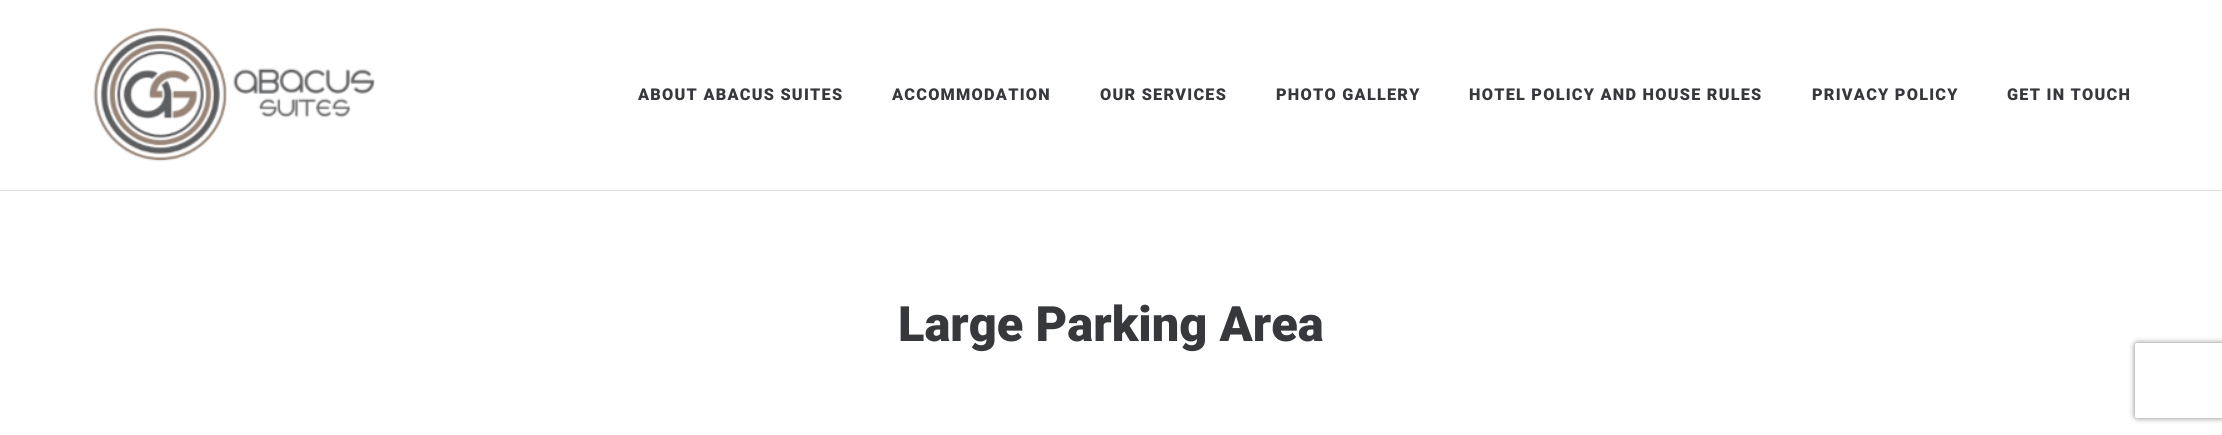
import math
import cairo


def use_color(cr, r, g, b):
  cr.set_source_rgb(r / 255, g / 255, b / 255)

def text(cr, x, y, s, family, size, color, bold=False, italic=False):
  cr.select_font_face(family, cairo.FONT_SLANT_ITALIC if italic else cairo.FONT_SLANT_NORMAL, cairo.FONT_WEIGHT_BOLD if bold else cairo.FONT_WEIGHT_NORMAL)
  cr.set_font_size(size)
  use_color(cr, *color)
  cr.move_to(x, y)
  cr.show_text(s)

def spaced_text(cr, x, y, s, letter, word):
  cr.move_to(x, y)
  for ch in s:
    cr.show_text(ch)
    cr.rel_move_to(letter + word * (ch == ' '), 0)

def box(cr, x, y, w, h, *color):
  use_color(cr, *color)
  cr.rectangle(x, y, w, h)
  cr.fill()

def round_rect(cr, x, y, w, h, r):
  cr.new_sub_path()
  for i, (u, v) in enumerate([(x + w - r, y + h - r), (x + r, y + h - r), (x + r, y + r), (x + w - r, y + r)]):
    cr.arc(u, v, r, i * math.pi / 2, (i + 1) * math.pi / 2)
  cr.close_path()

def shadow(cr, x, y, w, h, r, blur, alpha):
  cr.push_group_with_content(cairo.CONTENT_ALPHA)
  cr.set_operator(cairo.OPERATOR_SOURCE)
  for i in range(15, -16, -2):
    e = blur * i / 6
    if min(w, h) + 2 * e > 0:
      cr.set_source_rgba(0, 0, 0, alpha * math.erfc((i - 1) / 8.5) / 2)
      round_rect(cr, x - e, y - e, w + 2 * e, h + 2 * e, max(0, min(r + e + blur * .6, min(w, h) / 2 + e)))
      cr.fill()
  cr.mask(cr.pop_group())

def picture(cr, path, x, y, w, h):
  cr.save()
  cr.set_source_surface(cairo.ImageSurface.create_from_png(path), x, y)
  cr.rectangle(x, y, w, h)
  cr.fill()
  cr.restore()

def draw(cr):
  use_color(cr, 255, 255, 255)
  cr.paint()
  box(cr, 0, 190, 2222, 1, 221, 221, 221)
  picture(cr, "img_01.png", 93, 27, 283, 135)
  cr.save()
  cr.set_fill_rule(cairo.FILL_RULE_EVEN_ODD)
  cr.new_path()
  cr.move_to(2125, 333)
  cr.line_to(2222, 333)
  cr.line_to(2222, 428)
  cr.line_to(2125, 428)
  cr.close_path()
  cr.move_to(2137.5, 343)
  cr.line_to(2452.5, 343)
  cr.curve_to(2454, 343, 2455, 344, 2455, 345.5)
  cr.line_to(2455, 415.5)
  cr.curve_to(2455, 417, 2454, 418, 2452.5, 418)
  cr.line_to(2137.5, 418)
  cr.curve_to(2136, 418, 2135, 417, 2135, 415.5)
  cr.line_to(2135, 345.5)
  cr.curve_to(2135, 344, 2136, 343, 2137.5, 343)
  cr.close_path()
  cr.clip()
  use_color(cr, 128, 128, 128)
  shadow(cr, 2135, 343, 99, 75, 2.5, 3, 1)
  cr.restore()
  cr.select_font_face("Roboto Black")
  cr.set_font_size(16.25)
  use_color(cr, 55, 56, 60)
  spaced_text(cr, 638, 100, "ABOUT ABACUS SUITES", 1.25, 0)
  spaced_text(cr, 892, 100, "ACCOMMODATION", 1.25, 0)
  spaced_text(cr, 1100, 100, "OUR SERVICES", 1.25, 0)
  spaced_text(cr, 1276, 100, "PHOTO GALLERY", 1.25, 0)
  spaced_text(cr, 1469, 100, "HOTEL POLICY AND HOUSE RULES", 1.25, 0)
  spaced_text(cr, 1812, 100, "PRIVACY POLICY", 1.25, 0)
  spaced_text(cr, 2007, 100, "GET IN TOUCH", 1.25, 0)
  text(cr, 898, 341, "Large Parking Area", "Roboto Black", 48.75, (55, 56, 60))


surface = cairo.ImageSurface(cairo.FORMAT_RGB24, 2222, 435)
cr = cairo.Context(surface)
options = cairo.FontOptions()
options.set_hint_metrics(cairo.HINT_METRICS_OFF)
options.set_hint_style(cairo.HINT_STYLE_NONE)
cr.set_font_options(options)
cr.set_miter_limit(4)
draw(cr)
surface.write_to_png("out.png")
